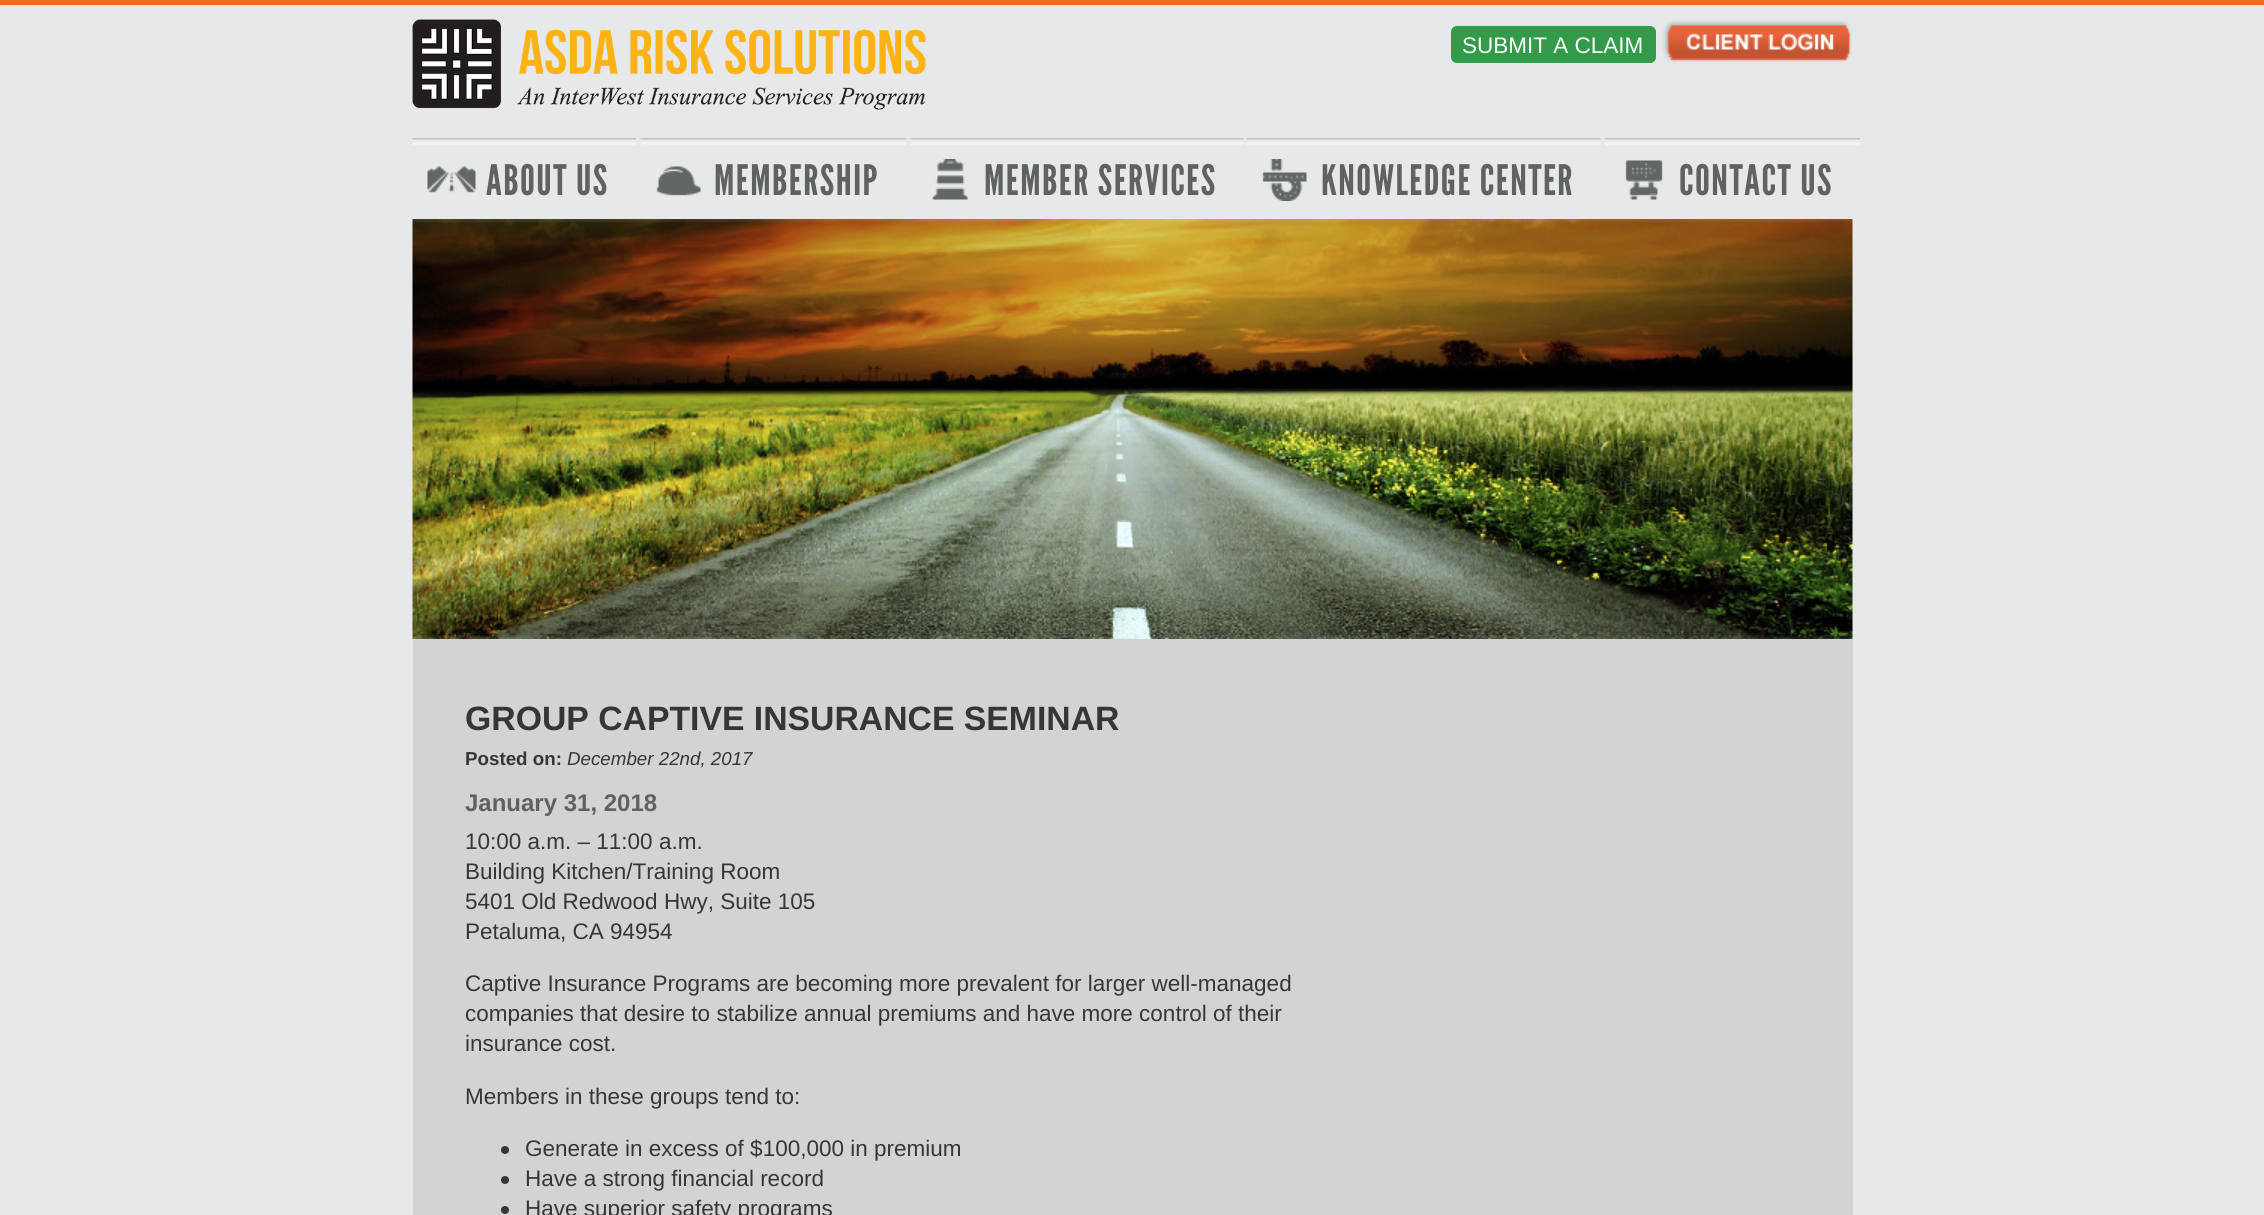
import math
import cairo


def use_color(cr, r, g, b):
  cr.set_source_rgb(r / 255, g / 255, b / 255)

def text(cr, x, y, s, family, size, color, bold=False, italic=False):
  cr.select_font_face(family, cairo.FONT_SLANT_ITALIC if italic else cairo.FONT_SLANT_NORMAL, cairo.FONT_WEIGHT_BOLD if bold else cairo.FONT_WEIGHT_NORMAL)
  cr.set_font_size(size)
  use_color(cr, *color)
  cr.move_to(x, y)
  cr.show_text(s)

def spaced_text(cr, x, y, s, letter, word):
  cr.move_to(x, y)
  for ch in s:
    cr.show_text(ch)
    cr.rel_move_to(letter + word * (ch == ' '), 0)

def box(cr, x, y, w, h, *color):
  use_color(cr, *color)
  cr.rectangle(x, y, w, h)
  cr.fill()

def round_rect(cr, x, y, w, h, r):
  cr.new_sub_path()
  for i, (u, v) in enumerate([(x + w - r, y + h - r), (x + r, y + h - r), (x + r, y + r), (x + w - r, y + r)]):
    cr.arc(u, v, r, i * math.pi / 2, (i + 1) * math.pi / 2)
  cr.close_path()

def picture(cr, path, x, y, w, h):
  cr.save()
  cr.set_source_surface(cairo.ImageSurface.create_from_png(path), x, y)
  cr.rectangle(x, y, w, h)
  cr.fill()
  cr.restore()

def draw(cr):
  use_color(cr, 231, 232, 233)
  cr.paint()
  box(cr, 0, 0, 2264, 5, 242, 103, 34)
  picture(cr, "img_01.png", 412, 19, 514, 91)
  use_color(cr, 51, 154, 73)
  round_rect(cr, 1451, 26, 205, 37, 6)
  cr.fill()
  picture(cr, "img_02.png", 1662, 20, 190, 43)
  picture(cr, "img_03.png", 412, 138, 224, 8)
  picture(cr, "img_04.png", 427, 166, 49, 27)
  picture(cr, "img_05.png", 640, 138, 266, 8)
  picture(cr, "img_06.png", 656, 166, 45, 30)
  picture(cr, "img_07.png", 910, 138, 334, 8)
  picture(cr, "img_08.png", 932, 159, 36, 41)
  picture(cr, "img_09.png", 1246, 138, 355, 8)
  picture(cr, "img_10.png", 1262, 159, 45, 42)
  picture(cr, "img_11.png", 1605, 138, 255, 8)
  picture(cr, "img_12.png", 1625, 160, 38, 40)
  picture(cr, "img_13.png", 412, 219, 1441, 420)
  box(cr, 413, 639, 1440, 576, 209, 211, 213)
  use_color(cr, 54, 54, 54)
  cr.arc(505, 1150, 4, 0, 2 * math.pi)
  cr.fill()
  cr.arc(505, 1180, 4, 0, 2 * math.pi)
  cr.fill()
  cr.arc(505, 1210, 4, 0, 2 * math.pi)
  cr.fill()
  text(cr, 1462, 53, "SUBMIT A CLAIM", "Liberation Sans", 22.5, (255, 255, 255))
  cr.select_font_face("League Gothic")
  cr.set_font_size(42)
  use_color(cr, 94, 98, 99)
  spaced_text(cr, 486, 195, "ABOUT US", 1.5, 0)
  spaced_text(cr, 714, 195, "MEMBERSHIP", 1.5, 0)
  spaced_text(cr, 984, 195, "MEMBER SERVICES", 1.5, 0)
  spaced_text(cr, 1321, 195, "KNOWLEDGE CENTER", 1.5, 0)
  spaced_text(cr, 1679, 195, "CONTACT US", 1.5, 0)
  text(cr, 465, 730, "GROUP CAPTIVE INSURANCE SEMINAR", "Liberation Sans", 33.75, (54, 54, 54), bold=True)
  text(cr, 465, 765, "Posted on:", "Liberation Sans", 18.75, (54, 54, 54), bold=True)
  text(cr, 567, 765, "December 22nd, 2017", "Liberation Sans", 18.75, (54, 54, 54), italic=True)
  text(cr, 465, 811, "January 31, 2018", "Liberation Sans", 24, (94, 98, 99), bold=True)
  text(cr, 465, 849, "10:00 a.m. – 11:00 a.m.", "Liberation Sans", 22.5, (54, 54, 54))
  text(cr, 465, 879, "Building Kitchen/Training Room", "Liberation Sans", 22.5, (54, 54, 54))
  text(cr, 465, 909, "5401 Old Redwood Hwy, Suite 105", "Liberation Sans", 22.5, (54, 54, 54))
  text(cr, 465, 939, "Petaluma, CA 94954", "Liberation Sans", 22.5, (54, 54, 54))
  text(cr, 465, 991, "Captive Insurance Programs are becoming more prevalent for larger well-managed", "Liberation Sans", 22.5, (54, 54, 54))
  text(cr, 465, 1021, "companies that desire to stabilize annual premiums and have more control of their", "Liberation Sans", 22.5, (54, 54, 54))
  text(cr, 465, 1051, "insurance cost.", "Liberation Sans", 22.5, (54, 54, 54))
  text(cr, 465, 1104, "Members in these groups tend to:", "Liberation Sans", 22.5, (54, 54, 54))
  text(cr, 525, 1156, "Generate in excess of $100,000 in premium", "Liberation Sans", 22.5, (54, 54, 54))
  text(cr, 525, 1186, "Have a strong financial record", "Liberation Sans", 22.5, (54, 54, 54))
  text(cr, 525, 1216, "Have superior safety programs", "Liberation Sans", 22.5, (54, 54, 54))


surface = cairo.ImageSurface(cairo.FORMAT_RGB24, 2264, 1215)
cr = cairo.Context(surface)
options = cairo.FontOptions()
options.set_hint_metrics(cairo.HINT_METRICS_OFF)
options.set_hint_style(cairo.HINT_STYLE_NONE)
cr.set_font_options(options)
cr.set_miter_limit(4)
draw(cr)
surface.write_to_png("out.png")
